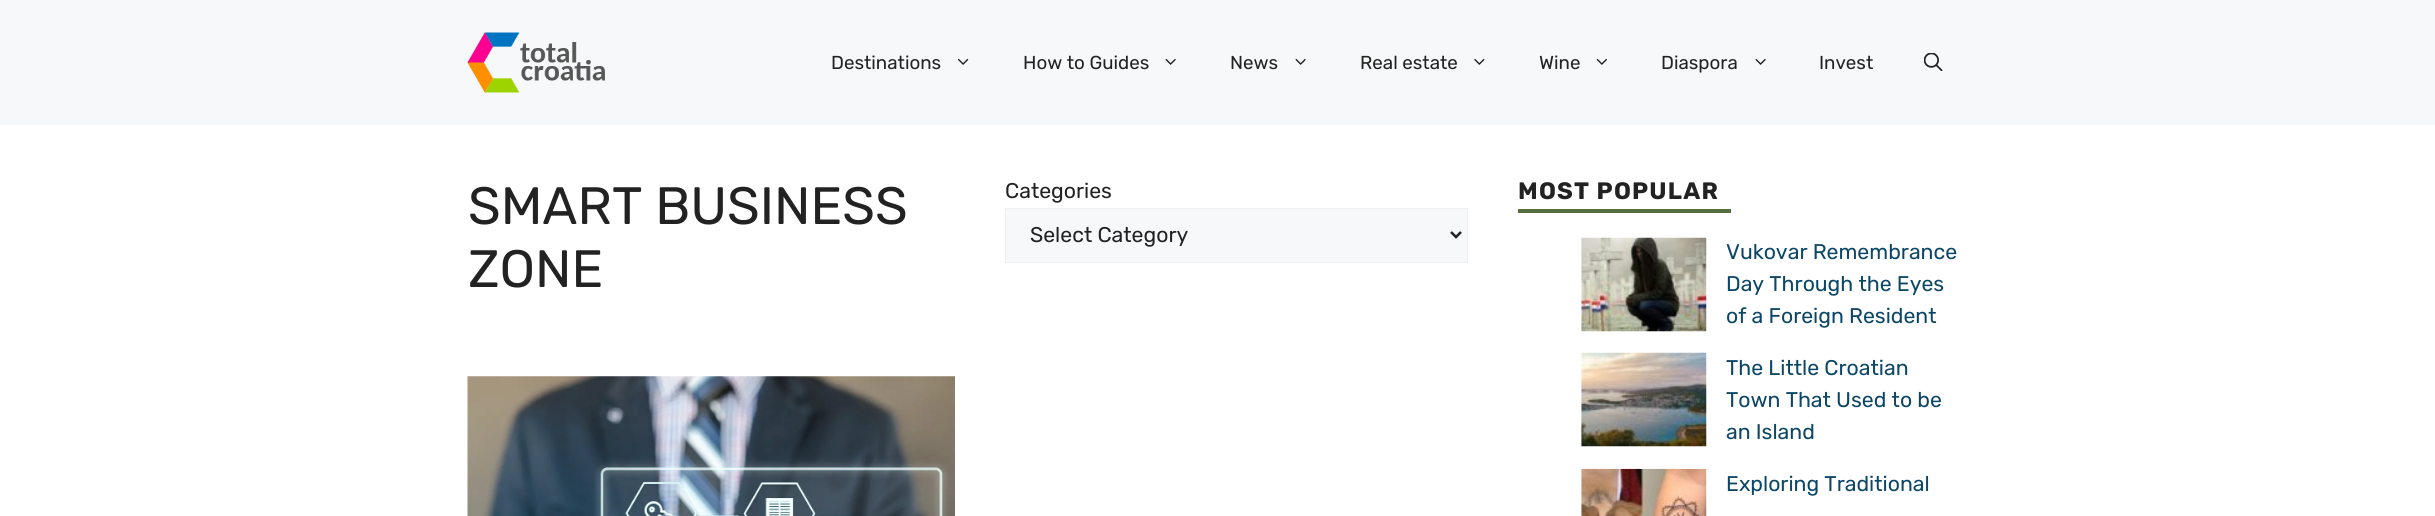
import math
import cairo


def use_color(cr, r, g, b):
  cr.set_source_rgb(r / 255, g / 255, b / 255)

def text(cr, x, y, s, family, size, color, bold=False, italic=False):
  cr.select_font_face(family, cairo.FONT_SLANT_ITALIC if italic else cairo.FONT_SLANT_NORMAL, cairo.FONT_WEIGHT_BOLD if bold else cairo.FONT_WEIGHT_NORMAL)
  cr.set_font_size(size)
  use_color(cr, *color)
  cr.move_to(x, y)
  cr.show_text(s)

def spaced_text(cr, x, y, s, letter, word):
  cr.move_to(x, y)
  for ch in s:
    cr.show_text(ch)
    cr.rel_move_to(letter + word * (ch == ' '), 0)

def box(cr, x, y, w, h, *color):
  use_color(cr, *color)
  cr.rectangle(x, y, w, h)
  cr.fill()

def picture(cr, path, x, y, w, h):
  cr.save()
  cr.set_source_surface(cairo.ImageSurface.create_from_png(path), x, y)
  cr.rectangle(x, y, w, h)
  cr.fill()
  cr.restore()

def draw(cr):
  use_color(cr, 255, 255, 255)
  cr.paint()
  box(cr, 0, 0, 2435, 125, 247, 248, 249)
  picture(cr, "img_01.png", 467, 32, 138, 61)
  picture(cr, "img_02.png", 958, 58, 11, 7)
  picture(cr, "img_03.png", 1165, 58, 11, 7)
  picture(cr, "img_03.png", 1295, 58, 11, 7)
  picture(cr, "img_04.png", 1474, 58, 11, 7)
  picture(cr, "img_05.png", 1596, 58, 11, 7)
  picture(cr, "img_03.png", 1755, 58, 11, 7)
  picture(cr, "img_06.png", 1924, 53, 19, 18)
  cr.rectangle(1005.5, 208.5, 462, 54)
  cr.fill_preserve()
  use_color(cr, 240, 240, 240)
  cr.set_line_width(1)
  cr.stroke()
  cr.new_path()
  cr.move_to(1451, 232)
  cr.line_to(1456, 237)
  cr.line_to(1461, 232)
  use_color(cr, 34, 34, 34)
  cr.set_line_width(2.5)
  cr.stroke()
  picture(cr, "img_07.png", 467, 376, 488, 140)
  box(cr, 1518, 209, 213, 4, 86, 110, 61)
  picture(cr, "img_08.png", 1581, 237, 126, 95)
  picture(cr, "img_09.png", 1581, 352, 126, 95)
  picture(cr, "img_10.png", 1581, 468, 126, 48)
  text(cr, 831, 69, "Destinations", "Rubik", 18.75, (34, 34, 34))
  text(cr, 1023, 69, "How to Guides", "Rubik", 18.75, (34, 34, 34))
  text(cr, 1230, 69, "News", "Rubik", 18.75, (34, 34, 34))
  text(cr, 1360, 69, "Real estate", "Rubik", 18.75, (34, 34, 34))
  text(cr, 1539, 69, "Wine", "Rubik", 18.75, (34, 34, 34))
  text(cr, 1661, 69, "Diaspora", "Rubik", 18.75, (34, 34, 34))
  text(cr, 1819, 69, "Invest", "Rubik", 18.75, (34, 34, 34))
  text(cr, 468, 224, "SMART BUSINESS", "Rubik", 52.5, (34, 34, 34))
  text(cr, 468, 287, "ZONE", "Rubik", 52.5, (34, 34, 34))
  text(cr, 1005, 198, "Categories", "Rubik", 21.25, (34, 34, 34))
  text(cr, 1030, 242, "Select Category", "Rubik", 21.25, (34, 34, 34))
  cr.select_font_face("Rubik", cairo.FONT_SLANT_NORMAL, cairo.FONT_WEIGHT_BOLD)
  cr.set_font_size(23.75)
  spaced_text(cr, 1518, 199, "MOST POPULAR", 1.25, 0)
  text(cr, 1726, 259, "Vukovar Remembrance", "Rubik", 21.25, (12, 71, 103))
  text(cr, 1726, 291, "Day Through the Eyes", "Rubik", 21.25, (12, 71, 103))
  text(cr, 1726, 323, "of a Foreign Resident", "Rubik", 21.25, (12, 71, 103))
  text(cr, 1726, 375, "The Little Croatian", "Rubik", 21.25, (12, 71, 103))
  text(cr, 1726, 407, "Town That Used to be", "Rubik", 21.25, (12, 71, 103))
  text(cr, 1726, 439, "an Island", "Rubik", 21.25, (12, 71, 103))
  text(cr, 1726, 491, "Exploring Traditional", "Rubik", 21.25, (12, 71, 103))


surface = cairo.ImageSurface(cairo.FORMAT_RGB24, 2435, 516)
cr = cairo.Context(surface)
options = cairo.FontOptions()
options.set_hint_metrics(cairo.HINT_METRICS_OFF)
options.set_hint_style(cairo.HINT_STYLE_NONE)
cr.set_font_options(options)
cr.set_miter_limit(4)
draw(cr)
surface.write_to_png("out.png")
